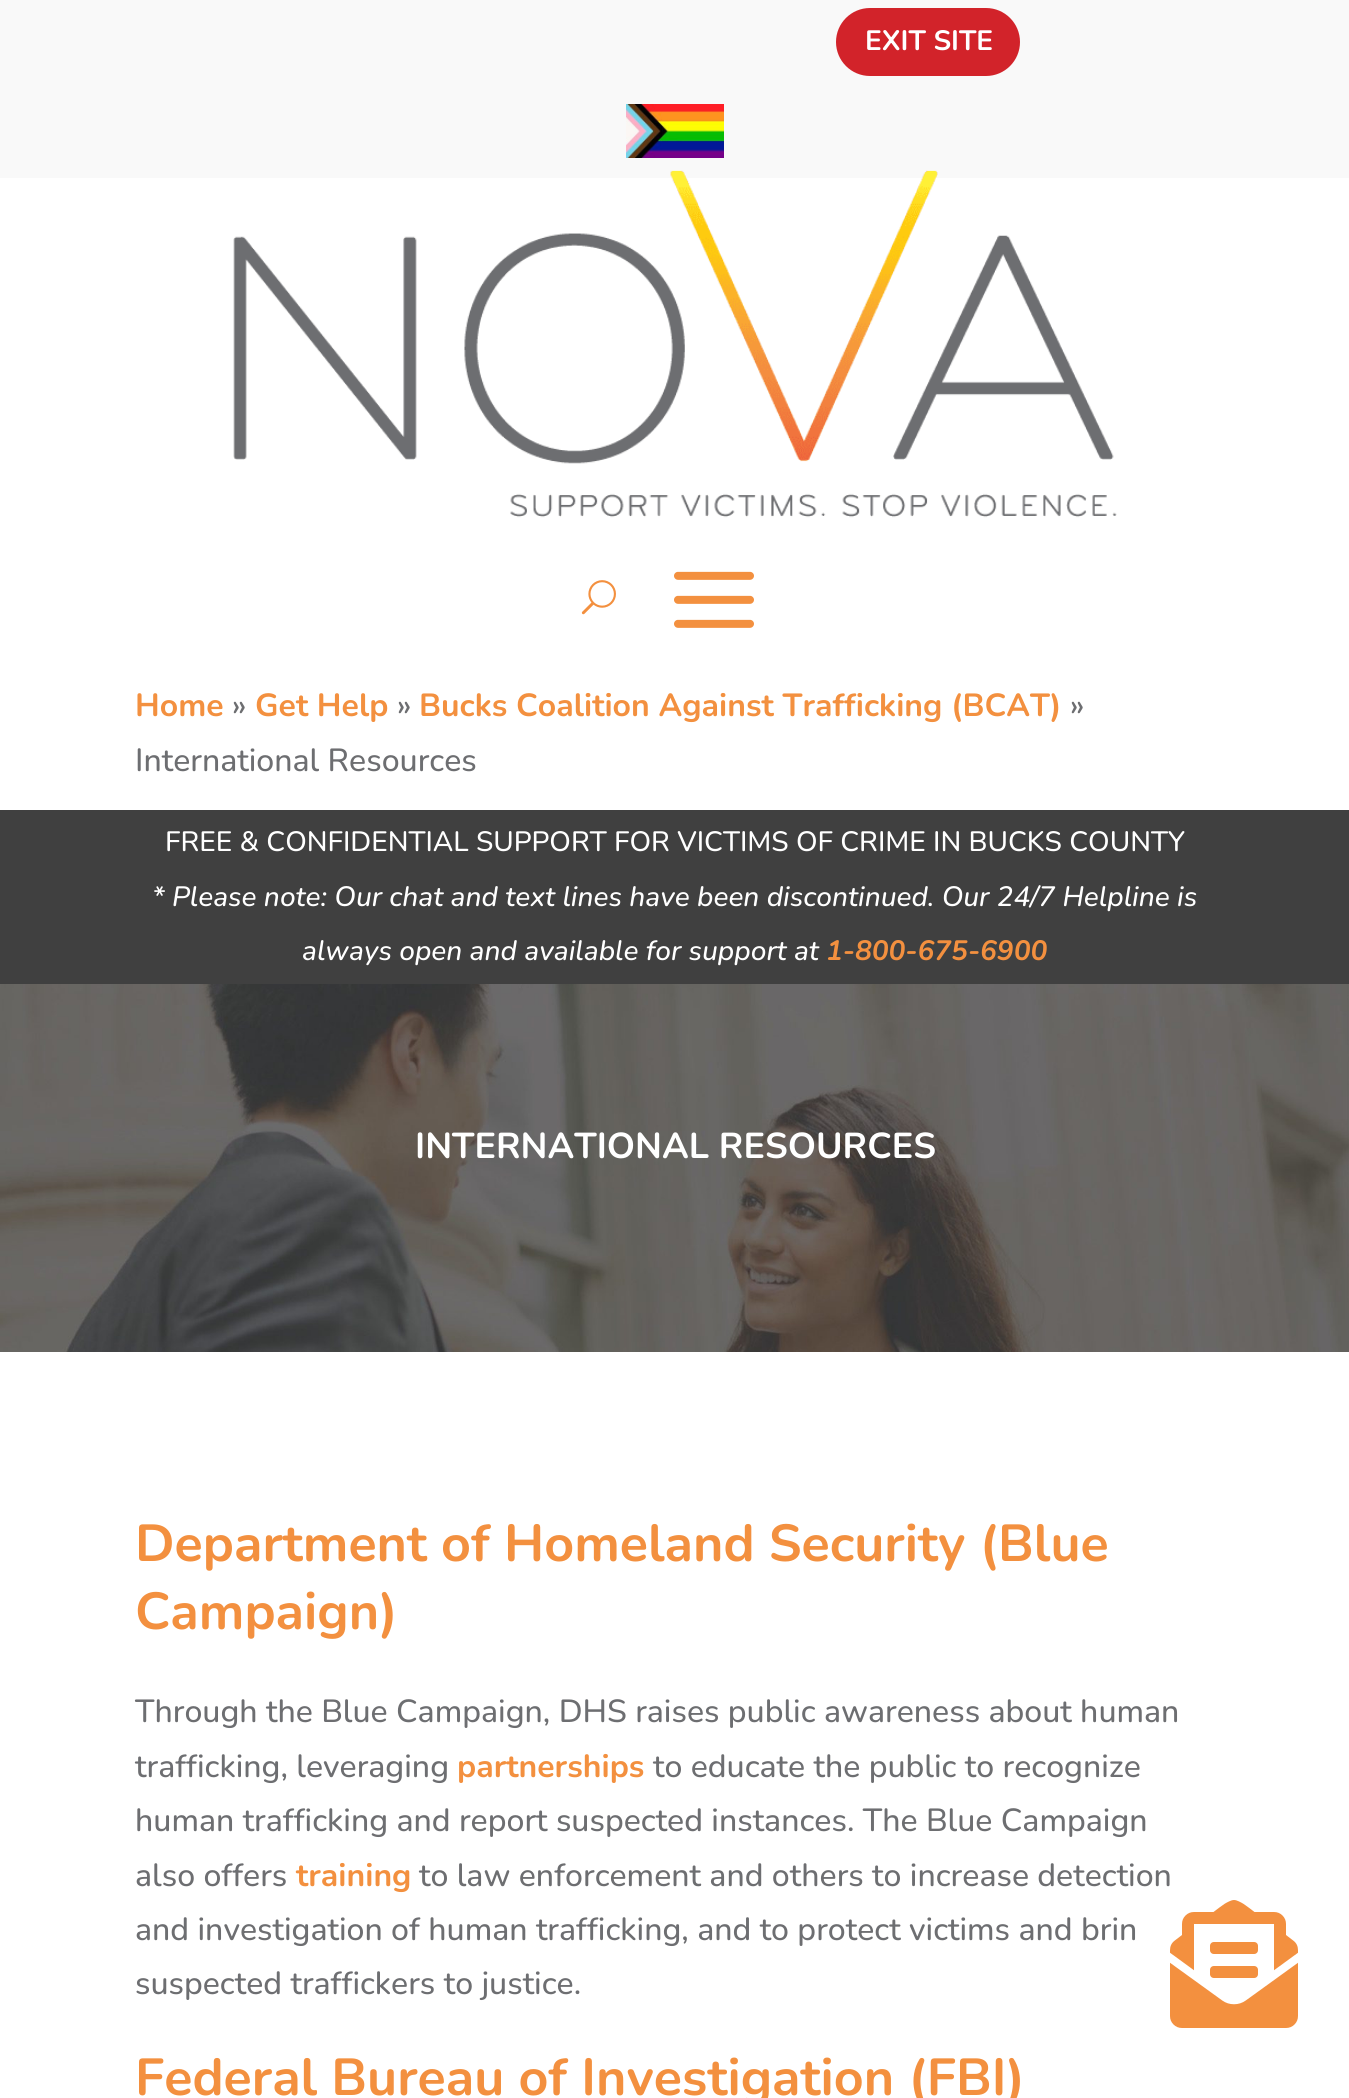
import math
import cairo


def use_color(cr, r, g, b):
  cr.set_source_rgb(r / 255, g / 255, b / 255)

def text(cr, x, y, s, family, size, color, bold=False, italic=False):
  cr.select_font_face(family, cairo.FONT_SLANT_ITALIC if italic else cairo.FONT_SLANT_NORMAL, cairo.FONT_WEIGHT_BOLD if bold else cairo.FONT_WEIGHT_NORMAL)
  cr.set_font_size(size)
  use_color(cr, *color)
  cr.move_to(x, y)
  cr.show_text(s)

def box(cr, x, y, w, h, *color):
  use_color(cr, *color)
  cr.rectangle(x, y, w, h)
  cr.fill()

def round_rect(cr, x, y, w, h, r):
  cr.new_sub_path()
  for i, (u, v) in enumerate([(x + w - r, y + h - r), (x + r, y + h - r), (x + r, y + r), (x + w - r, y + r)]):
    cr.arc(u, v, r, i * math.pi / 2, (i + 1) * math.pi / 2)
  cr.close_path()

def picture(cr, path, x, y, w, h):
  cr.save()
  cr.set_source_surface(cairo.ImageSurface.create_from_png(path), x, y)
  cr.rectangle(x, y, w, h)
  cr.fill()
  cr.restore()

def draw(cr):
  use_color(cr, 255, 255, 255)
  cr.paint()
  box(cr, 0, 0, 1349, 178, 249, 249, 249)
  use_color(cr, 210, 35, 42)
  round_rect(cr, 836, 8, 184, 68, 34)
  cr.fill()
  picture(cr, "img_01.png", 626, 104, 98, 54)
  picture(cr, "img_02.png", 233, 170, 884, 348)
  picture(cr, "img_03.png", 581, 580, 35, 35)
  picture(cr, "img_04.png", 674, 571, 80, 57)
  picture(cr, "img_05.png", 1170, 1900, 128, 128)
  box(cr, 0, 810, 1349, 174, 64, 64, 64)
  picture(cr, "img_06.png", 0, 984, 1349, 368)
  text(cr, 865, 50, "EXIT SITE", "Nunito ExtraLight", 28, (255, 255, 255))
  text(cr, 135, 716, "Home", "Nunito ExtraLight", 32, (243, 144, 63))
  text(cr, 232, 716, "»", "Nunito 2 ExtraLight", 32, (109, 110, 113))
  text(cr, 255, 716, "Get Help", "Nunito ExtraLight", 32, (243, 144, 63))
  text(cr, 397, 716, "»", "Nunito 2 ExtraLight", 32, (109, 110, 113))
  text(cr, 419, 716, "Bucks Coalition Against Trafficking (BCAT)", "Nunito ExtraLight", 32, (243, 144, 63))
  text(cr, 1070, 716, "»", "Nunito 2 ExtraLight", 32, (109, 110, 113))
  text(cr, 135, 771, "International Resources", "Nunito 2 ExtraLight", 32, (109, 110, 113))
  text(cr, 165, 851, "FREE & CONFIDENTIAL SUPPORT FOR VICTIMS OF CRIME IN BUCKS COUNTY", "Nunito 2 ExtraLight", 28, (255, 255, 255))
  text(cr, 152, 906, "* Please note: Our chat and text lines have been discontinued. Our 24/7 Helpline is", "Nunito ExtraLight", 28, (255, 255, 255), italic=True)
  text(cr, 302, 960, "always open and available for support at", "Nunito ExtraLight", 28, (255, 255, 255), italic=True)
  text(cr, 826, 960, "1-800-675-6900", "Nunito 2 ExtraLight", 28, (243, 144, 63), italic=True)
  text(cr, 415, 1158, "INTERNATIONAL RESOURCES", "Nunito ExtraLight", 36, (255, 255, 255))
  text(cr, 135, 1561, "Department of Homeland Security (Blue", "Nunito ExtraLight", 52, (243, 144, 63))
  text(cr, 135, 1629, "Campaign)", "Nunito ExtraLight", 52, (243, 144, 63))
  text(cr, 135, 1722, "Through the Blue Campaign, DHS raises public awareness about human", "Nunito 2 ExtraLight", 32, (109, 110, 113))
  text(cr, 135, 1777, "trafficking, leveraging", "Nunito 2 ExtraLight", 32, (109, 110, 113))
  text(cr, 457, 1777, "partnerships", "Nunito ExtraLight", 32, (243, 144, 63))
  text(cr, 653, 1777, "to educate the public to recognize", "Nunito 2 ExtraLight", 32, (109, 110, 113))
  text(cr, 135, 1831, "human trafficking and report suspected instances. The Blue Campaign", "Nunito 2 ExtraLight", 32, (109, 110, 113))
  text(cr, 135, 1886, "also offers", "Nunito 2 ExtraLight", 32, (109, 110, 113))
  text(cr, 296, 1886, "training", "Nunito ExtraLight", 32, (243, 144, 63))
  text(cr, 419, 1886, "to law enforcement and others to increase detection", "Nunito 2 ExtraLight", 32, (109, 110, 113))
  text(cr, 135, 1940, "and investigation of human trafficking, and to protect victims and brin", "Nunito 2 ExtraLight", 32, (109, 110, 113))
  text(cr, 135, 1994, "suspected traffickers to justice.", "Nunito 2 ExtraLight", 32, (109, 110, 113))
  text(cr, 135, 2095, "Federal Bureau of Investigation (FBI)", "Nunito ExtraLight", 52, (243, 144, 63))


surface = cairo.ImageSurface(cairo.FORMAT_RGB24, 1349, 2098)
cr = cairo.Context(surface)
options = cairo.FontOptions()
options.set_hint_metrics(cairo.HINT_METRICS_OFF)
options.set_hint_style(cairo.HINT_STYLE_NONE)
cr.set_font_options(options)
cr.set_miter_limit(4)
draw(cr)
surface.write_to_png("out.png")
